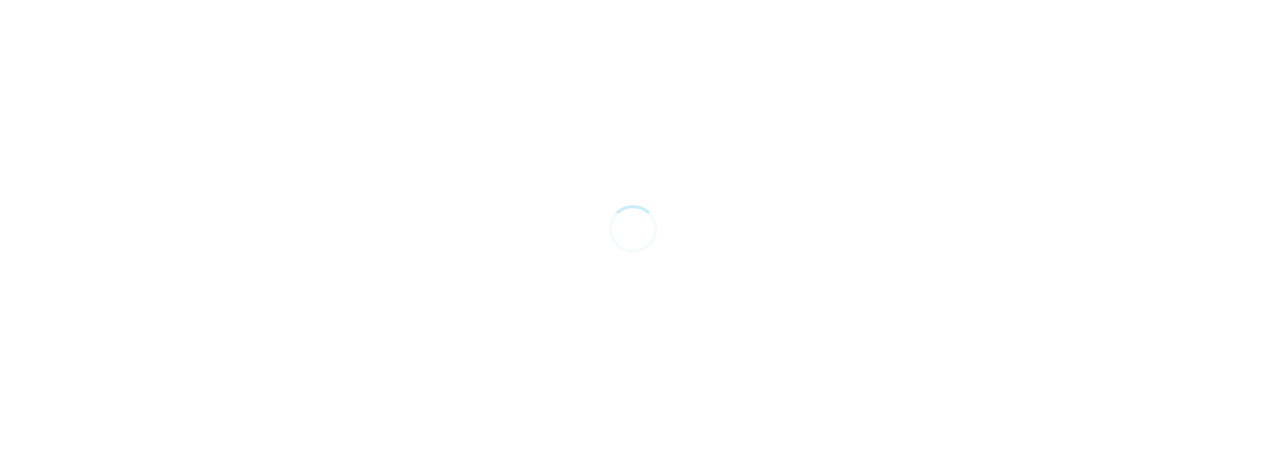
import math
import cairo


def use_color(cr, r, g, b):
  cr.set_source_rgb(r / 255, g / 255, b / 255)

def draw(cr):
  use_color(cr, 255, 255, 255)
  cr.paint()
  cr.new_path()
  cr.move_to(617, 213)
  cr.curve_to(626, 204.5, 640, 204.5, 649, 213)
  use_color(cr, 201, 236, 249)
  cr.set_line_width(3)
  cr.stroke()
  cr.new_path()
  cr.move_to(649, 213)
  cr.curve_to(653, 217.5, 655.5, 223, 655.5, 229)
  cr.curve_to(655.5, 256, 616, 259.5, 611, 233.5)
  cr.curve_to(609.5, 226, 612, 218.5, 617, 213)
  cr.set_source_rgba(0.788, 0.925, 0.976, 0.2)
  cr.stroke()


surface = cairo.ImageSurface(cairo.FORMAT_RGB24, 1266, 458)
cr = cairo.Context(surface)
options = cairo.FontOptions()
options.set_hint_metrics(cairo.HINT_METRICS_OFF)
options.set_hint_style(cairo.HINT_STYLE_NONE)
cr.set_font_options(options)
cr.set_miter_limit(4)
draw(cr)
surface.write_to_png("out.png")
